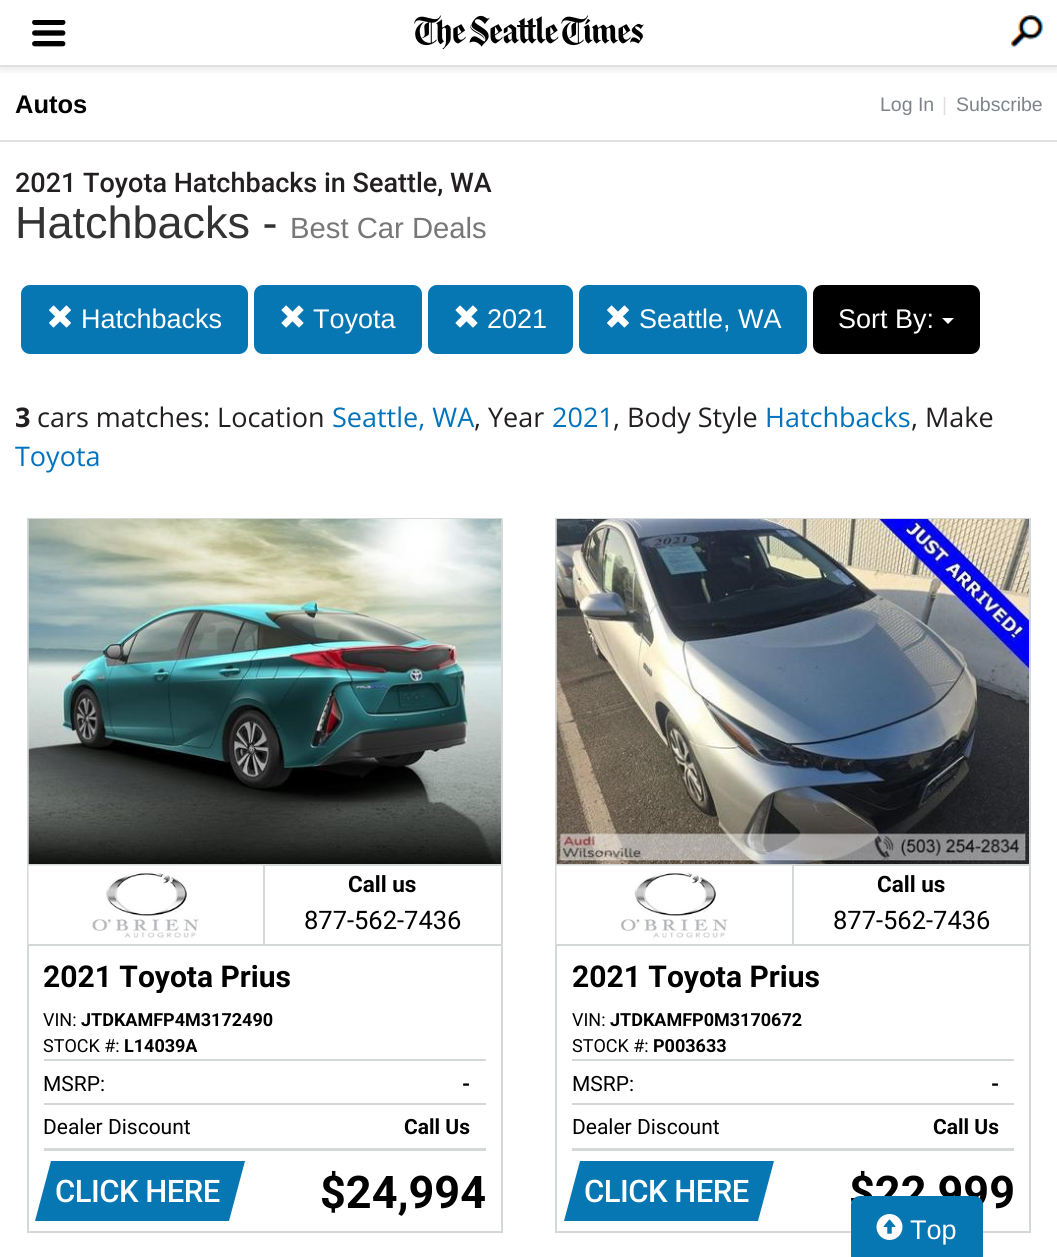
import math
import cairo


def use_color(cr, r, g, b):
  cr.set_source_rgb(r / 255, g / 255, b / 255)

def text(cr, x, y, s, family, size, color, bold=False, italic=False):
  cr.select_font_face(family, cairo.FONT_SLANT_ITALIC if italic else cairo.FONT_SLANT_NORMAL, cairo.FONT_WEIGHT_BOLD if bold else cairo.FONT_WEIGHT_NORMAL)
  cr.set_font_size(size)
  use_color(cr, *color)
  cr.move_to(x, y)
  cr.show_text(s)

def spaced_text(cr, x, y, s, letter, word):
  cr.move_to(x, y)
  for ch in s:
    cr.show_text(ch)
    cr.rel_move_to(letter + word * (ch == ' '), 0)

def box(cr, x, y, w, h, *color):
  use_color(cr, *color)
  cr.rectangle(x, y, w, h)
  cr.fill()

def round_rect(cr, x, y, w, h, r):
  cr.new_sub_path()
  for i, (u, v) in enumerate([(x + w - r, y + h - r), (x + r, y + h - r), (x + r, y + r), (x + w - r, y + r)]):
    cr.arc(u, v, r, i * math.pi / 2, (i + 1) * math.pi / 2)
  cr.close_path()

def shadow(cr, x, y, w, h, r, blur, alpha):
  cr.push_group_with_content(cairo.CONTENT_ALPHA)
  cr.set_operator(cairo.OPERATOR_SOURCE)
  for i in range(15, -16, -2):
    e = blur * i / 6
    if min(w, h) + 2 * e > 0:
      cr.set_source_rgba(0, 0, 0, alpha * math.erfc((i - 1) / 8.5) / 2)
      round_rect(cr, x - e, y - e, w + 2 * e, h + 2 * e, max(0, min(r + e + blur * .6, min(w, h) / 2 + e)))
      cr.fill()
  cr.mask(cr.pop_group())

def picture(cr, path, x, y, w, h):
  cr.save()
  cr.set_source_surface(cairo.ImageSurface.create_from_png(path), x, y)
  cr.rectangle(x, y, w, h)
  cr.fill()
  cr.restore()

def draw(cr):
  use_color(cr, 255, 255, 255)
  cr.paint()
  cr.save()
  cr.rectangle(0, 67, 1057, 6)
  cr.clip()
  use_color(cr, 0, 0, 0)
  shadow(cr, 0, 3, 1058, 66, 0, 5, 0.1)
  cr.restore()
  box(cr, 0, 65, 1057, 2, 224, 224, 224)
  picture(cr, "img_01.png", 32, 20, 34, 27)
  picture(cr, "img_02.png", 414, 15, 230, 35)
  picture(cr, "img_03.png", 1011, 15, 32, 32)
  box(cr, 0, 140, 1057, 2, 224, 224, 224)
  use_color(cr, 7, 119, 179)
  round_rect(cr, 21, 285, 227, 69, 9)
  cr.fill()
  picture(cr, "img_04.png", 49, 305, 22, 23)
  round_rect(cr, 254, 285, 168, 69, 9)
  cr.fill()
  picture(cr, "img_05.png", 281, 305, 23, 23)
  round_rect(cr, 428, 285, 145, 69, 9)
  cr.fill()
  picture(cr, "img_05.png", 455, 305, 23, 23)
  round_rect(cr, 579, 285, 228, 69, 9)
  cr.fill()
  picture(cr, "img_04.png", 607, 305, 22, 23)
  use_color(cr, 0, 0, 0)
  round_rect(cr, 813, 285, 167, 69, 9)
  cr.fill()
  use_color(cr, 255, 255, 255)
  cr.new_path()
  cr.move_to(942, 318)
  cr.line_to(954, 318)
  cr.line_to(948, 324)
  cr.close_path()
  cr.fill()
  cr.rectangle(28, 519, 474, 713)
  use_color(cr, 212, 216, 217)
  cr.stroke()
  picture(cr, "img_06.png", 28, 519, 473, 345)
  box(cr, 29, 864, 235, 2, 212, 216, 217)
  box(cr, 263, 864, 2, 81, 212, 216, 217)
  box(cr, 29, 944, 472, 2, 212, 216, 217)
  picture(cr, "img_07.png", 28, 865, 235, 79)
  box(cr, 264, 864, 237, 2, 212, 216, 217)
  box(cr, 44, 1059, 442, 2, 212, 216, 217)
  box(cr, 44, 1103, 442, 2, 212, 216, 217)
  box(cr, 44, 1148, 442, 3, 212, 216, 217)
  use_color(cr, 7, 119, 179)
  cr.new_path()
  cr.move_to(51, 1161)
  cr.line_to(245, 1161)
  cr.line_to(229, 1221)
  cr.line_to(35, 1221)
  cr.close_path()
  cr.fill()
  cr.rectangle(556, 519, 474, 713)
  use_color(cr, 212, 216, 217)
  cr.stroke()
  picture(cr, "img_08.png", 556, 519, 473, 345)
  box(cr, 557, 864, 472, 2, 212, 216, 217)
  box(cr, 792, 864, 2, 81, 212, 216, 217)
  box(cr, 557, 944, 472, 2, 212, 216, 217)
  picture(cr, "img_09.png", 556, 865, 236, 79)
  box(cr, 572, 1059, 442, 2, 212, 216, 217)
  box(cr, 572, 1103, 442, 2, 212, 216, 217)
  box(cr, 572, 1148, 442, 3, 212, 216, 217)
  use_color(cr, 7, 119, 179)
  cr.new_path()
  cr.move_to(580, 1161)
  cr.line_to(774, 1161)
  cr.line_to(758, 1221)
  cr.line_to(564, 1221)
  cr.close_path()
  cr.fill()
  text(cr, 15, 113, "Autos", "Liberation Sans", 25.5, (0, 0, 0), bold=True)
  text(cr, 880, 111, "Log In", "Liberation Sans", 19.5, (126, 131, 139))
  text(cr, 942, 111, "|", "Liberation Sans", 19.5, (224, 224, 224))
  text(cr, 956, 111, "Subscribe", "Liberation Sans", 19.5, (126, 131, 139))
  text(cr, 15, 192, "2021 Toyota Hatchbacks in Seattle, WA", "Roboto Medium", 27, (35, 31, 32))
  text(cr, 15, 238, "Hatchbacks -", "Liberation Sans", 45, (51, 51, 51))
  text(cr, 290, 238, "Best Car Deals", "Liberation Sans", 29.25, (119, 119, 119))
  text(cr, 81, 328, "Hatchbacks", "Liberation Sans", 27, (255, 255, 255))
  text(cr, 313, 328, "Toyota", "Liberation Sans", 27, (255, 255, 255))
  text(cr, 487, 328, "2021", "Liberation Sans", 27, (255, 255, 255))
  text(cr, 639, 328, "Seattle, WA", "Liberation Sans", 27, (255, 255, 255))
  text(cr, 838, 328, "Sort By:", "Liberation Sans", 27, (255, 255, 255))
  text(cr, 15, 427, "3", "Open Sans", 27, (35, 31, 32), bold=True)
  text(cr, 37, 427, "cars matches: Location", "Open Sans", 27, (35, 31, 32))
  text(cr, 332, 427, "Seattle, WA", "Open Sans", 27, (0, 115, 189))
  text(cr, 474, 427, ", Year", "Open Sans", 27, (35, 31, 32))
  text(cr, 552, 427, "2021", "Open Sans", 27, (0, 115, 189))
  text(cr, 613, 427, ", Body Style", "Open Sans", 27, (35, 31, 32))
  text(cr, 765, 427, "Hatchbacks", "Open Sans", 27, (0, 115, 189))
  text(cr, 911, 427, ", Make", "Open Sans", 27, (35, 31, 32))
  text(cr, 15, 466, "Toyota", "Open Sans", 27, (0, 115, 189))
  text(cr, 348, 892, "Call us", "Roboto", 22.5, (0, 0, 0), bold=True)
  text(cr, 304, 929, "877-562-7436", "Roboto", 25.5, (0, 0, 0))
  cr.save()
  cr.rectangle(44, 960, 247, 33)
  cr.clip()
  text(cr, 43, 987, "2021 Toyota Prius", "Roboto", 30, (0, 0, 0), bold=True)
  cr.restore()
  text(cr, 43, 1026, "VIN:", "Roboto", 18, (0, 0, 0))
  text(cr, 81, 1026, "JTDKAMFP4M3172490", "Roboto", 18, (0, 0, 0), bold=True)
  text(cr, 43, 1052, "STOCK #:", "Roboto", 18, (0, 0, 0))
  text(cr, 124, 1052, "L14039A", "Roboto", 18, (0, 0, 0), bold=True)
  text(cr, 43, 1091, "MSRP:", "Roboto", 21, (0, 0, 0))
  text(cr, 462, 1091, "-", "Roboto", 21, (0, 0, 0), bold=True)
  text(cr, 43, 1134, "Dealer Discount", "Roboto", 21, (0, 0, 0))
  text(cr, 404, 1134, "Call Us", "Roboto", 21, (0, 0, 0), bold=True)
  cr.select_font_face("Roboto Medium")
  cr.set_font_size(31)
  use_color(cr, 255, 255, 255)
  spaced_text(cr, 55, 1202, "CLICK HERE", -0.5, 0)
  text(cr, 320, 1208, "$24,994", "Roboto", 45, (0, 0, 0), bold=True)
  text(cr, 877, 892, "Call us", "Roboto", 22.5, (0, 0, 0), bold=True)
  text(cr, 833, 929, "877-562-7436", "Roboto", 25.5, (0, 0, 0))
  cr.save()
  cr.rectangle(572, 960, 247, 33)
  cr.clip()
  text(cr, 572, 987, "2021 Toyota Prius", "Roboto", 30, (0, 0, 0), bold=True)
  cr.restore()
  text(cr, 572, 1026, "VIN:", "Roboto", 18, (0, 0, 0))
  text(cr, 610, 1026, "JTDKAMFP0M3170672", "Roboto", 18, (0, 0, 0), bold=True)
  text(cr, 572, 1052, "STOCK #:", "Roboto", 18, (0, 0, 0))
  text(cr, 653, 1052, "P003633", "Roboto", 18, (0, 0, 0), bold=True)
  text(cr, 572, 1091, "MSRP:", "Roboto", 21, (0, 0, 0))
  text(cr, 991, 1091, "-", "Roboto", 21, (0, 0, 0), bold=True)
  text(cr, 572, 1134, "Dealer Discount", "Roboto", 21, (0, 0, 0))
  text(cr, 933, 1134, "Call Us", "Roboto", 21, (0, 0, 0), bold=True)
  cr.select_font_face("Roboto Medium")
  cr.set_font_size(31)
  use_color(cr, 255, 255, 255)
  spaced_text(cr, 584, 1202, "CLICK HERE", -0.5, 0)
  text(cr, 849, 1208, "$22,999", "Roboto", 45, (0, 0, 0), bold=True)
  use_color(cr, 7, 119, 179)
  round_rect(cr, 852, 1197, 130, 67, 8)
  cr.fill_preserve()
  cr.stroke()
  picture(cr, "img_10.png", 876, 1214, 27, 26)
  text(cr, 910, 1239, "Top", "Liberation Sans", 27, (255, 255, 255))


surface = cairo.ImageSurface(cairo.FORMAT_RGB24, 1057, 1257)
cr = cairo.Context(surface)
options = cairo.FontOptions()
options.set_hint_metrics(cairo.HINT_METRICS_OFF)
options.set_hint_style(cairo.HINT_STYLE_NONE)
cr.set_font_options(options)
cr.set_miter_limit(4)
draw(cr)
surface.write_to_png("out.png")
